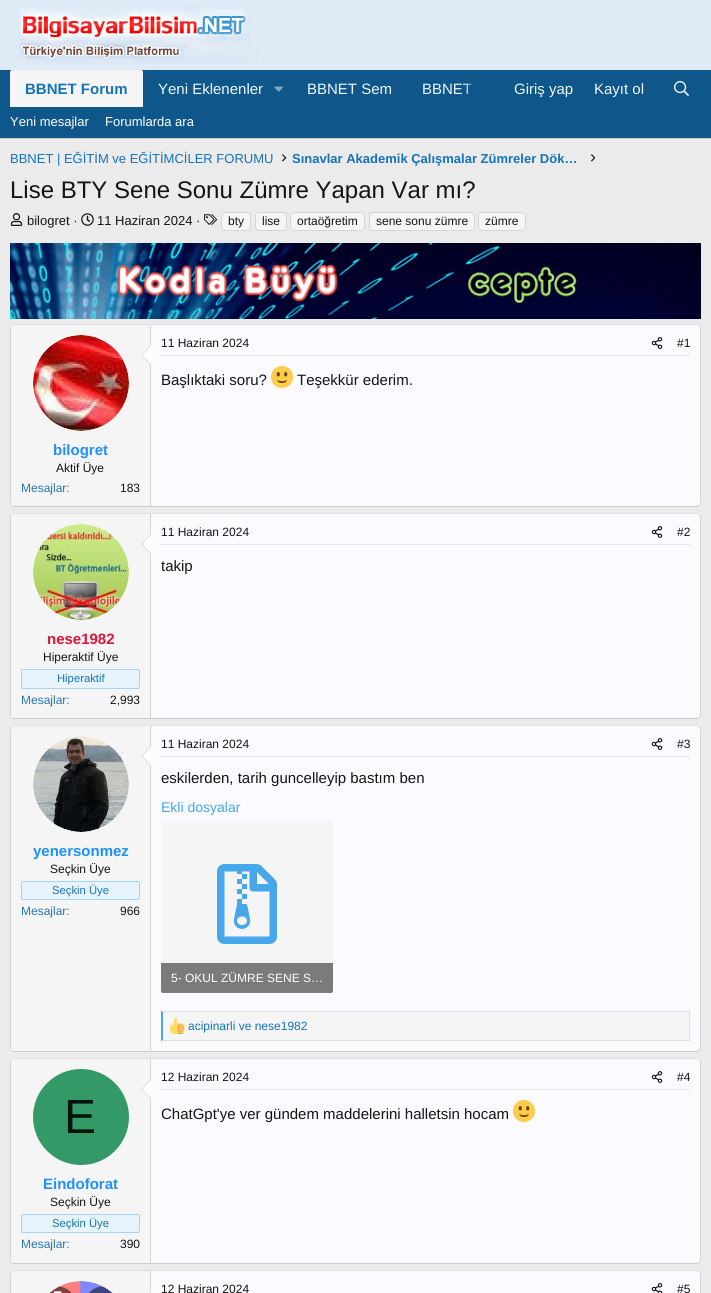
import math
import cairo


def use_color(cr, r, g, b):
  cr.set_source_rgb(r / 255, g / 255, b / 255)

def text(cr, x, y, s, family, size, color, bold=False, italic=False):
  cr.select_font_face(family, cairo.FONT_SLANT_ITALIC if italic else cairo.FONT_SLANT_NORMAL, cairo.FONT_WEIGHT_BOLD if bold else cairo.FONT_WEIGHT_NORMAL)
  cr.set_font_size(size)
  use_color(cr, *color)
  cr.move_to(x, y)
  cr.show_text(s)

def box(cr, x, y, w, h, *color):
  use_color(cr, *color)
  cr.rectangle(x, y, w, h)
  cr.fill()

def round_rect(cr, x, y, w, h, r):
  cr.new_sub_path()
  for i, (u, v) in enumerate([(x + w - r, y + h - r), (x + r, y + h - r), (x + r, y + r), (x + w - r, y + r)]):
    cr.arc(u, v, r, i * math.pi / 2, (i + 1) * math.pi / 2)
  cr.close_path()

def picture(cr, path, x, y, w, h):
  cr.save()
  cr.set_source_surface(cairo.ImageSurface.create_from_png(path), x, y)
  cr.rectangle(x, y, w, h)
  cr.fill()
  cr.restore()

def draw(cr):
  use_color(cr, 235, 235, 235)
  cr.paint()
  box(cr, 0, 0, 711, 70, 222, 234, 246)
  picture(cr, "img_01.png", 19, 6, 239, 58)
  box(cr, 0, 70, 711, 68, 15, 87, 138)
  use_color(cr, 245, 245, 245)
  cr.new_path()
  cr.move_to(12, 70)
  cr.line_to(141, 70)
  cr.curve_to(142, 70, 143, 71, 143, 72)
  cr.line_to(143, 107)
  cr.line_to(10, 107)
  cr.line_to(10, 72)
  cr.curve_to(10, 71, 11, 70, 12, 70)
  cr.close_path()
  cr.fill()
  picture(cr, "img_02.png", 274, 86, 9, 6)
  picture(cr, "img_03.png", 674, 81, 15, 15)
  box(cr, 0, 138, 711, 1, 204, 204, 204)
  picture(cr, "img_04.png", 282, 154, 5, 8)
  picture(cr, "img_05.png", 591, 154, 4, 8)
  picture(cr, "img_06.png", 10, 213, 13, 13)
  picture(cr, "img_07.png", 81, 213, 13, 13)
  picture(cr, "img_08.png", 204, 214, 13, 11)
  use_color(cr, 245, 245, 245)
  round_rect(cr, 221.5, 212.5, 29, 18, 3.5)
  cr.fill_preserve()
  use_color(cr, 214, 214, 214)
  cr.set_line_width(1)
  cr.stroke()
  use_color(cr, 245, 245, 245)
  round_rect(cr, 255.5, 212.5, 31, 18, 3.5)
  cr.fill_preserve()
  use_color(cr, 214, 214, 214)
  cr.stroke()
  use_color(cr, 245, 245, 245)
  round_rect(cr, 290.5, 212.5, 74, 18, 3.5)
  cr.fill_preserve()
  use_color(cr, 214, 214, 214)
  cr.stroke()
  use_color(cr, 245, 245, 245)
  round_rect(cr, 369.5, 212.5, 105, 18, 3.5)
  cr.fill_preserve()
  use_color(cr, 214, 214, 214)
  cr.stroke()
  use_color(cr, 245, 245, 245)
  round_rect(cr, 478.5, 212.5, 47, 18, 3.5)
  cr.fill_preserve()
  use_color(cr, 214, 214, 214)
  cr.stroke()
  picture(cr, "img_09.png", 10, 243, 691, 76)
  use_color(cr, 250, 250, 255)
  round_rect(cr, 10, 324, 691, 183, 4)
  cr.fill()
  cr.new_path()
  cr.move_to(11.5, 325.5)
  cr.line_to(14, 324.5)
  cr.line_to(697, 324.5)
  cr.line_to(699.5, 325.5)
  use_color(cr, 224, 224, 224)
  cr.stroke()
  cr.new_path()
  cr.move_to(699.5, 325.5)
  cr.line_to(700.5, 328)
  cr.line_to(700.5, 503.5)
  cr.line_to(699.5, 505.5)
  use_color(cr, 214, 214, 214)
  cr.stroke()
  cr.new_path()
  cr.move_to(699.5, 505.5)
  cr.line_to(697, 506.5)
  cr.line_to(14, 506.5)
  cr.line_to(11.5, 505.5)
  use_color(cr, 204, 204, 204)
  cr.stroke()
  cr.new_path()
  cr.move_to(11.5, 505.5)
  cr.line_to(10.5, 503)
  cr.line_to(10.5, 327.5)
  cr.line_to(11.5, 325.5)
  use_color(cr, 214, 214, 214)
  cr.stroke()
  box(cr, 161, 355, 529, 1, 229, 229, 229)
  picture(cr, "img_10.png", 651, 337, 12, 12)
  picture(cr, "img_11.png", 271, 366, 22, 22)
  use_color(cr, 245, 245, 245)
  cr.new_path()
  cr.move_to(14, 325)
  cr.line_to(151, 325)
  cr.line_to(151, 506)
  cr.line_to(14, 506)
  cr.curve_to(12.5, 506, 11, 504.5, 11, 503)
  cr.line_to(11, 328)
  cr.curve_to(11, 326.5, 12.5, 325, 14, 325)
  cr.close_path()
  cr.fill()
  box(cr, 150, 325, 1, 181, 214, 214, 214)
  use_color(cr, 255, 255, 255)
  cr.arc(81, 383, 48, 0, 2 * math.pi)
  cr.fill()
  picture(cr, "img_12.png", 33, 335, 96, 96)
  use_color(cr, 214, 214, 214)
  cr.new_path()
  cr.move_to(151, 345)
  cr.line_to(151, 365)
  cr.line_to(141, 355)
  cr.close_path()
  cr.fill()
  use_color(cr, 255, 255, 255)
  cr.new_path()
  cr.move_to(151, 346)
  cr.line_to(151, 364)
  cr.line_to(142, 355)
  cr.close_path()
  cr.fill()
  use_color(cr, 250, 250, 255)
  round_rect(cr, 10, 513, 691, 206, 4)
  cr.fill()
  cr.new_path()
  cr.move_to(11.5, 514.5)
  cr.line_to(14, 513.5)
  cr.line_to(697, 513.5)
  cr.line_to(699.5, 514.5)
  use_color(cr, 224, 224, 224)
  cr.stroke()
  cr.new_path()
  cr.move_to(699.5, 514.5)
  cr.curve_to(700, 515, 700.5, 516, 700.5, 517)
  cr.line_to(700.5, 715)
  cr.curve_to(700.5, 716, 700, 717, 699.5, 717.5)
  use_color(cr, 214, 214, 214)
  cr.stroke()
  cr.new_path()
  cr.move_to(699.5, 717.5)
  cr.line_to(697, 718.5)
  cr.line_to(14, 718.5)
  cr.line_to(11.5, 717.5)
  use_color(cr, 204, 204, 204)
  cr.stroke()
  cr.new_path()
  cr.move_to(11.5, 717.5)
  cr.curve_to(11, 717, 10.5, 716, 10.5, 715)
  cr.line_to(10.5, 517)
  cr.curve_to(10.5, 516, 11, 515, 11.5, 514.5)
  use_color(cr, 214, 214, 214)
  cr.stroke()
  box(cr, 161, 544, 529, 1, 229, 229, 229)
  picture(cr, "img_10.png", 651, 526, 12, 12)
  use_color(cr, 245, 245, 245)
  cr.new_path()
  cr.move_to(14, 514)
  cr.line_to(151, 514)
  cr.line_to(151, 718)
  cr.line_to(14, 718)
  cr.curve_to(12.5, 718, 11, 716.5, 11, 715)
  cr.line_to(11, 517)
  cr.curve_to(11, 515.5, 12.5, 514, 14, 514)
  cr.close_path()
  cr.fill()
  box(cr, 150, 514, 1, 204, 214, 214, 214)
  use_color(cr, 255, 255, 255)
  cr.arc(81, 572, 48, 0, 2 * math.pi)
  cr.fill()
  picture(cr, "img_13.png", 33, 524, 96, 96)
  use_color(cr, 214, 214, 214)
  cr.new_path()
  cr.move_to(151, 534)
  cr.line_to(151, 554)
  cr.line_to(141, 544)
  cr.close_path()
  cr.fill()
  use_color(cr, 255, 255, 255)
  cr.new_path()
  cr.move_to(151, 535)
  cr.line_to(151, 553)
  cr.line_to(142, 544)
  cr.close_path()
  cr.fill()
  use_color(cr, 232, 244, 252)
  round_rect(cr, 21.5, 669.5, 118, 19, 1.5)
  cr.fill_preserve()
  use_color(cr, 163, 212, 245)
  cr.stroke()
  use_color(cr, 250, 250, 255)
  round_rect(cr, 10, 725, 691, 327, 4)
  cr.fill()
  cr.new_path()
  cr.move_to(11.5, 726.5)
  cr.line_to(14, 725.5)
  cr.line_to(697, 725.5)
  cr.line_to(699.5, 726.5)
  use_color(cr, 224, 224, 224)
  cr.stroke()
  cr.new_path()
  cr.move_to(699.5, 726.5)
  cr.line_to(700.5, 729)
  cr.line_to(700.5, 1048)
  cr.line_to(699.5, 1050.5)
  use_color(cr, 214, 214, 214)
  cr.stroke()
  cr.new_path()
  cr.move_to(699.5, 1050.5)
  cr.line_to(697, 1051.5)
  cr.line_to(14, 1051.5)
  cr.line_to(11.5, 1050.5)
  use_color(cr, 204, 204, 204)
  cr.stroke()
  cr.new_path()
  cr.move_to(11.5, 1050.5)
  cr.line_to(10.5, 1048)
  cr.line_to(10.5, 729)
  cr.line_to(11.5, 726.5)
  use_color(cr, 214, 214, 214)
  cr.stroke()
  use_color(cr, 245, 245, 245)
  cr.new_path()
  cr.move_to(14, 726)
  cr.line_to(151, 726)
  cr.line_to(151, 1051)
  cr.line_to(14, 1051)
  cr.curve_to(12.5, 1051, 11, 1049.5, 11, 1048)
  cr.line_to(11, 729)
  cr.curve_to(11, 727.5, 12.5, 726, 14, 726)
  cr.close_path()
  cr.fill()
  box(cr, 150, 726, 1, 325, 214, 214, 214)
  use_color(cr, 255, 255, 255)
  cr.arc(81, 784, 48, 0, 2 * math.pi)
  cr.fill()
  picture(cr, "img_14.png", 33, 736, 96, 96)
  use_color(cr, 214, 214, 214)
  cr.new_path()
  cr.move_to(151, 746)
  cr.line_to(151, 766)
  cr.line_to(141, 756)
  cr.close_path()
  cr.fill()
  use_color(cr, 255, 255, 255)
  cr.new_path()
  cr.move_to(151, 747)
  cr.line_to(151, 765)
  cr.line_to(142, 756)
  cr.close_path()
  cr.fill()
  use_color(cr, 232, 244, 252)
  round_rect(cr, 21.5, 881.5, 118, 18, 1.5)
  cr.fill_preserve()
  use_color(cr, 163, 212, 245)
  cr.stroke()
  box(cr, 161, 756, 529, 1, 229, 229, 229)
  picture(cr, "img_10.png", 651, 738, 12, 12)
  use_color(cr, 245, 245, 245)
  round_rect(cr, 161, 821, 172, 172, 2)
  cr.fill()
  picture(cr, "img_15.png", 217, 864, 60, 80)
  use_color(cr, 123, 123, 123)
  cr.new_path()
  cr.move_to(161, 963)
  cr.line_to(333, 963)
  cr.line_to(333, 991)
  cr.curve_to(333, 992, 332, 993, 331, 993)
  cr.line_to(163, 993)
  cr.curve_to(162, 993, 161, 992, 161, 991)
  cr.close_path()
  cr.fill()
  box(cr, 163, 1012, 526, 28, 245, 245, 245)
  use_color(cr, 224, 224, 224)
  cr.new_path()
  cr.move_to(161, 1011)
  cr.line_to(690, 1011)
  cr.line_to(689, 1012)
  cr.line_to(163, 1012)
  cr.close_path()
  cr.fill()
  box(cr, 689, 1011, 1, 30, 224, 224, 224)
  cr.new_path()
  cr.move_to(690, 1041)
  cr.line_to(161, 1041)
  cr.line_to(163, 1040)
  cr.line_to(689, 1040)
  cr.close_path()
  cr.fill()
  use_color(cr, 71, 167, 235)
  cr.new_path()
  cr.move_to(161, 1041)
  cr.line_to(161, 1011)
  cr.line_to(163, 1012)
  cr.line_to(163, 1040)
  cr.close_path()
  cr.fill()
  picture(cr, "img_16.png", 169, 1018, 16, 16)
  use_color(cr, 250, 250, 255)
  round_rect(cr, 10, 1058, 691, 206, 4)
  cr.fill()
  cr.new_path()
  cr.move_to(11.5, 1059.5)
  cr.line_to(14, 1058.5)
  cr.line_to(697, 1058.5)
  cr.line_to(699.5, 1059.5)
  use_color(cr, 224, 224, 224)
  cr.stroke()
  cr.new_path()
  cr.move_to(699.5, 1059.5)
  cr.curve_to(700, 1060, 700.5, 1061, 700.5, 1062)
  cr.line_to(700.5, 1260)
  cr.curve_to(700.5, 1261, 700, 1262, 699.5, 1262.5)
  use_color(cr, 214, 214, 214)
  cr.stroke()
  cr.new_path()
  cr.move_to(699.5, 1262.5)
  cr.line_to(697, 1263.5)
  cr.line_to(14, 1263.5)
  cr.line_to(11.5, 1262.5)
  use_color(cr, 204, 204, 204)
  cr.stroke()
  cr.new_path()
  cr.move_to(11.5, 1262.5)
  cr.curve_to(11, 1262, 10.5, 1261, 10.5, 1260)
  cr.line_to(10.5, 1062)
  cr.curve_to(10.5, 1061, 11, 1060, 11.5, 1059.5)
  use_color(cr, 214, 214, 214)
  cr.stroke()
  use_color(cr, 245, 245, 245)
  cr.new_path()
  cr.move_to(14, 1059)
  cr.line_to(151, 1059)
  cr.line_to(151, 1263)
  cr.line_to(14, 1263)
  cr.curve_to(12.5, 1263, 11, 1261.5, 11, 1260)
  cr.line_to(11, 1062)
  cr.curve_to(11, 1060.5, 12.5, 1059, 14, 1059)
  cr.close_path()
  cr.fill()
  box(cr, 150, 1059, 1, 204, 214, 214, 214)
  cr.new_path()
  cr.move_to(151, 1079)
  cr.line_to(151, 1099)
  cr.line_to(141, 1089)
  cr.close_path()
  cr.fill()
  use_color(cr, 255, 255, 255)
  cr.new_path()
  cr.move_to(151, 1080)
  cr.line_to(151, 1098)
  cr.line_to(142, 1089)
  cr.close_path()
  cr.fill()
  use_color(cr, 51, 153, 102)
  cr.arc(81, 1117, 48, 0, 2 * math.pi)
  cr.fill()
  use_color(cr, 232, 244, 252)
  round_rect(cr, 21.5, 1214.5, 118, 18, 1.5)
  cr.fill_preserve()
  use_color(cr, 163, 212, 245)
  cr.stroke()
  box(cr, 161, 1089, 529, 1, 229, 229, 229)
  picture(cr, "img_10.png", 651, 1071, 12, 12)
  picture(cr, "img_11.png", 513, 1100, 22, 22)
  use_color(cr, 250, 250, 255)
  round_rect(cr, 10, 1270, 691, 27, 4)
  cr.fill()
  cr.new_path()
  cr.move_to(11.5, 1271.5)
  cr.line_to(14, 1270.5)
  cr.line_to(697, 1270.5)
  cr.line_to(699.5, 1271.5)
  use_color(cr, 224, 224, 224)
  cr.stroke()
  cr.new_path()
  cr.move_to(699.5, 1271.5)
  cr.line_to(700.5, 1274)
  cr.line_to(700.5, 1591)
  cr.line_to(699.5, 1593.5)
  use_color(cr, 214, 214, 214)
  cr.stroke()
  cr.new_path()
  cr.move_to(11.5, 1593.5)
  cr.line_to(10.5, 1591)
  cr.line_to(10.5, 1274)
  cr.line_to(11.5, 1271.5)
  cr.stroke()
  use_color(cr, 245, 245, 245)
  cr.new_path()
  cr.move_to(14, 1271)
  cr.line_to(151, 1271)
  cr.line_to(151, 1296)
  cr.line_to(14, 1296)
  cr.curve_to(12.5, 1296, 11, 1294.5, 11, 1293)
  cr.line_to(11, 1274)
  cr.curve_to(11, 1272.5, 12.5, 1271, 14, 1271)
  cr.close_path()
  cr.fill()
  box(cr, 150, 1271, 1, 22, 214, 214, 214)
  use_color(cr, 255, 255, 255)
  round_rect(cr, 33, 1281, 96, 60, 48)
  cr.fill()
  picture(cr, "img_17.png", 49, 1281, 64, 12)
  use_color(cr, 214, 214, 214)
  cr.new_path()
  cr.move_to(151, 1291)
  cr.line_to(151, 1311)
  cr.line_to(141, 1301)
  cr.close_path()
  cr.fill()
  use_color(cr, 255, 255, 255)
  cr.new_path()
  cr.move_to(151, 1292)
  cr.line_to(151, 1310)
  cr.line_to(142, 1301)
  cr.close_path()
  cr.fill()
  picture(cr, "img_18.png", 651, 1283, 12, 10)
  text(cr, 25, 94, "BBNET Forum", "Liberation Sans", 15, (20, 116, 184), bold=True)
  text(cr, 158, 94, "Yeni Eklenenler", "Liberation Sans", 15, (238, 248, 255))
  text(cr, 307, 94, "BBNET Sem", "Liberation Sans", 15, (238, 248, 255))
  text(cr, 422, 94, "BBNET", "Liberation Sans", 15, (238, 248, 255))
  gradient = cairo.LinearGradient(464, 89, 504, 89)
  gradient.add_color_stop_rgba(0, 0.059, 0.341, 0.541, 0)
  gradient.add_color_stop_rgba(0.33, 0.059, 0.341, 0.541, 1)
  cr.set_source(gradient)
  cr.rectangle(464, 83, 9, 11)
  cr.fill()
  text(cr, 514, 94, "Giriş yap", "Liberation Sans", 15, (238, 248, 255))
  text(cr, 594, 94, "Kayıt ol", "Liberation Sans", 15, (238, 248, 255))
  text(cr, 10, 126, "Yeni mesajlar", "Liberation Sans", 13, (255, 255, 255))
  text(cr, 105, 126, "Forumlarda ara", "Liberation Sans", 13, (255, 255, 255))
  text(cr, 10, 163, "BBNET | EĞİTİM ve EĞİTİMCİLER FORUMU", "Liberation Sans", 13, (20, 116, 184))
  text(cr, 292, 163, "Sınavlar Akademik Çalışmalar Zümreler Dök…", "Liberation Sans", 13, (20, 116, 184), bold=True)
  text(cr, 10, 198, "Lise BTY Sene Sonu Zümre Yapan Var mı?", "Liberation Sans", 24, (20, 20, 20))
  text(cr, 27, 225, "bilogret ·", "Liberation Sans", 13, (20, 20, 20))
  text(cr, 97, 225, "11 Haziran 2024 ·", "Liberation Sans", 13, (20, 20, 20))
  text(cr, 228, 225, "bty", "Liberation Sans", 12, (20, 20, 20))
  text(cr, 262, 225, "lise", "Liberation Sans", 12, (20, 20, 20))
  text(cr, 297, 225, "ortaöğretim", "Liberation Sans", 12, (20, 20, 20))
  text(cr, 376, 225, "sene sonu zümre", "Liberation Sans", 12, (20, 20, 20))
  text(cr, 485, 225, "zümre", "Liberation Sans", 12, (20, 20, 20))
  text(cr, 161, 347, "11 Haziran 2024", "Liberation Sans", 12, (20, 20, 20))
  text(cr, 677, 347, "#1", "Liberation Sans", 12, (20, 20, 20))
  text(cr, 161, 385, "Başlıktaki soru?", "Liberation Sans", 15, (20, 20, 20))
  text(cr, 297, 385, "Teşekkür ederim.", "Liberation Sans", 15, (20, 20, 20))
  text(cr, 53, 455, "bilogret", "Liberation Sans", 15, (30, 144, 255), bold=True)
  text(cr, 56, 472, "Aktif Üye", "Liberation Sans", 12, (20, 20, 20))
  text(cr, 21, 492, "Mesajlar:", "Liberation Sans", 12, (37, 119, 177))
  text(cr, 120, 492, "183", "Liberation Sans", 12, (20, 20, 20))
  text(cr, 161, 536, "11 Haziran 2024", "Liberation Sans", 12, (20, 20, 20))
  text(cr, 677, 536, "#2", "Liberation Sans", 12, (20, 20, 20))
  text(cr, 161, 571, "takip", "Liberation Sans", 15, (20, 20, 20))
  text(cr, 47, 644, "nese1982", "Liberation Sans", 15, (220, 20, 60), bold=True)
  text(cr, 43, 661, "Hiperaktif Üye", "Liberation Sans", 12, (20, 20, 20))
  text(cr, 57, 682, "Hiperaktif", "Liberation Sans", 11.25, (20, 116, 184))
  text(cr, 21, 704, "Mesajlar:", "Liberation Sans", 12, (37, 119, 177))
  text(cr, 110, 704, "2,993", "Liberation Sans", 12, (20, 20, 20))
  text(cr, 33, 856, "yenersonmez", "Liberation Sans", 15, (30, 144, 255), bold=True)
  text(cr, 50, 873, "Seçkin Üye", "Liberation Sans", 12, (20, 20, 20))
  text(cr, 52, 894, "Seçkin Üye", "Liberation Sans", 11.25, (20, 116, 184))
  text(cr, 21, 915, "Mesajlar:", "Liberation Sans", 12, (37, 119, 177))
  text(cr, 120, 915, "966", "Liberation Sans", 12, (20, 20, 20))
  text(cr, 161, 748, "11 Haziran 2024", "Liberation Sans", 12, (20, 20, 20))
  text(cr, 677, 748, "#3", "Liberation Sans", 12, (20, 20, 20))
  text(cr, 161, 783, "eskilerden, tarih guncelleyip bastım ben", "Liberation Sans", 15, (20, 20, 20))
  text(cr, 161, 812, "Ekli dosyalar", "Liberation Sans", 14, (71, 167, 235))
  text(cr, 171, 982, "5- OKUL ZÜMRE SENE S…", "Liberation Sans", 12, (255, 255, 255))
  text(cr, 188, 1030, "acipinarli ve nese1982", "Liberation Sans", 12, (20, 116, 184))
  text(cr, 64, 1133, "E", "Liberation Sans", 48, (6, 19, 13))
  text(cr, 43, 1189, "Eindoforat", "Liberation Sans", 15, (30, 144, 255), bold=True)
  text(cr, 50, 1206, "Seçkin Üye", "Liberation Sans", 12, (20, 20, 20))
  text(cr, 52, 1227, "Seçkin Üye", "Liberation Sans", 11.25, (20, 116, 184))
  text(cr, 21, 1248, "Mesajlar:", "Liberation Sans", 12, (37, 119, 177))
  text(cr, 120, 1248, "390", "Liberation Sans", 12, (20, 20, 20))
  text(cr, 161, 1081, "12 Haziran 2024", "Liberation Sans", 12, (20, 20, 20))
  text(cr, 677, 1081, "#4", "Liberation Sans", 12, (20, 20, 20))
  text(cr, 161, 1119, "ChatGpt'ye ver gündem maddelerini halletsin hocam", "Liberation Sans", 15, (20, 20, 20))
  text(cr, 161, 1293, "12 Haziran 2024", "Liberation Sans", 12, (20, 20, 20))
  text(cr, 677, 1293, "#5", "Liberation Sans", 12, (20, 20, 20))


surface = cairo.ImageSurface(cairo.FORMAT_RGB24, 711, 1293)
cr = cairo.Context(surface)
options = cairo.FontOptions()
options.set_hint_metrics(cairo.HINT_METRICS_OFF)
options.set_hint_style(cairo.HINT_STYLE_NONE)
cr.set_font_options(options)
cr.set_miter_limit(4)
draw(cr)
surface.write_to_png("out.png")
